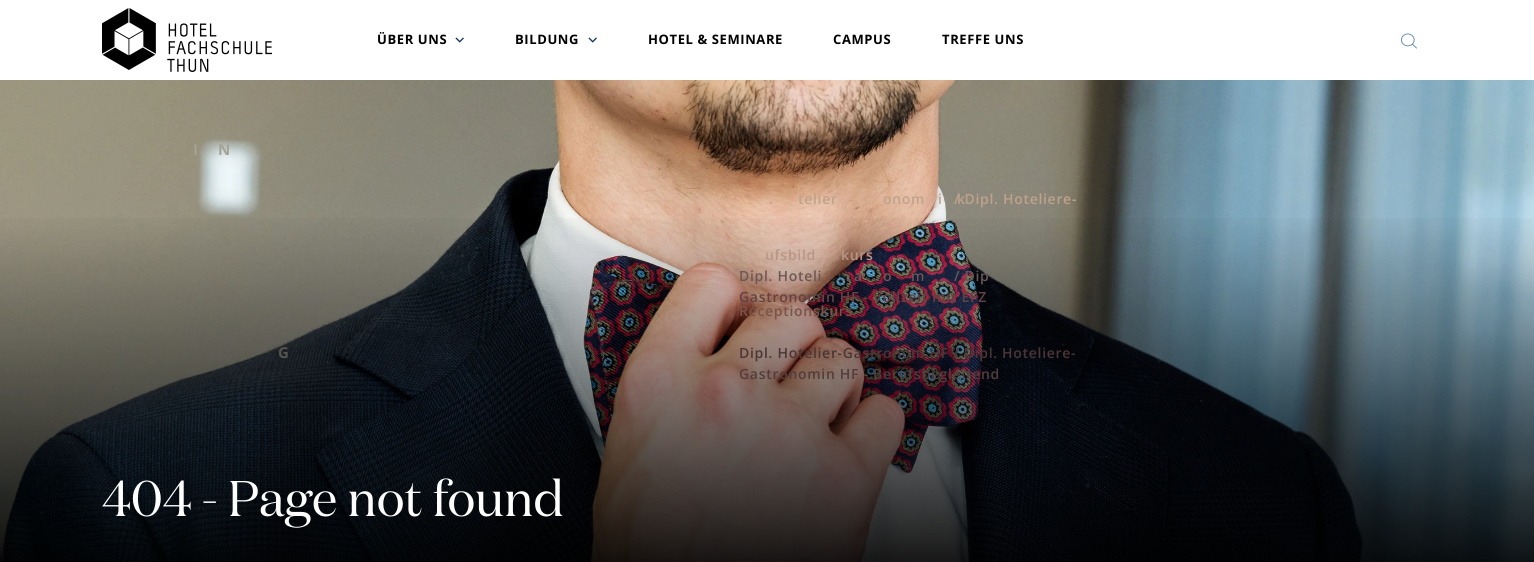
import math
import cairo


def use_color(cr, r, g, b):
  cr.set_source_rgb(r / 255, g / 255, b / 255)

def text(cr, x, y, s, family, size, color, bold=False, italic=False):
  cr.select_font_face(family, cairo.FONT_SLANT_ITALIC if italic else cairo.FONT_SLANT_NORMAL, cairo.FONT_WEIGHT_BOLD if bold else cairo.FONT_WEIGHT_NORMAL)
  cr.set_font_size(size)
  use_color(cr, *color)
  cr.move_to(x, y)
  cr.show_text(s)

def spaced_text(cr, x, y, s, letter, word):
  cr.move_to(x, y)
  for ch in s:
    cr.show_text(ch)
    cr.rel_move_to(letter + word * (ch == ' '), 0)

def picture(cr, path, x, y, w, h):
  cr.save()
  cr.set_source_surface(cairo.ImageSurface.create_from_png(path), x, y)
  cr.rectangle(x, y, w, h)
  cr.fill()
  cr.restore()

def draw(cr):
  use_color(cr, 255, 255, 255)
  cr.paint()
  picture(cr, "img_01.png", 102, 8, 170, 64)
  picture(cr, "img_02.png", 455, 37, 9, 6)
  picture(cr, "img_02.png", 588, 37, 9, 6)
  picture(cr, "img_03.png", 1401, 33, 16, 16)
  picture(cr, "img_04.png", 0, 80, 1534, 482)
  gradient = cairo.LinearGradient(767, 0, 767, 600)
  gradient.add_color_stop_rgba(0.35, 0, 0, 0, 0)
  gradient.add_color_stop_rgba(1, 0, 0, 0, 1)
  cr.set_source(gradient)
  cr.rectangle(0, 218, 1534, 344)
  cr.fill()
  cr.select_font_face("Open Sans", cairo.FONT_SLANT_NORMAL, cairo.FONT_WEIGHT_BOLD)
  cr.set_font_size(13)
  use_color(cr, 0, 0, 0)
  spaced_text(cr, 377, 44, "ÜBER UNS", 0.6, 0)
  cr.set_font_size(15)
  use_color(cr, 164, 163, 148)
  spaced_text(cr, 193, 155, "I", 1, 0)
  spaced_text(cr, 218, 155, "N", 1, 0)
  cr.set_font_size(13)
  use_color(cr, 0, 0, 0)
  spaced_text(cr, 515, 44, "BILDUNG", 0.6, 0)
  cr.set_font_size(15)
  use_color(cr, 84, 83, 76)
  spaced_text(cr, 278, 358, "G", 1, 0)
  cr.select_font_face("Open Sans SemiBold")
  cr.set_font_size(14)
  use_color(cr, 190, 162, 140)
  spaced_text(cr, 769, 204, ".", 0.7, 0)
  spaced_text(cr, 798, 204, "telier", 0.7, 0)
  spaced_text(cr, 883, 204, "onom", 0.7, 0)
  spaced_text(cr, 954, 204, "/ Dipl. Hoteliere-", 0.7, 0)
  use_color(cr, 218, 178, 156)
  spaced_text(cr, 864, 225, "-", 0.7, 0)
  use_color(cr, 107, 88, 86)
  spaced_text(cr, 739, 281, "Dipl. Hoteli", 0.7, 0)
  spaced_text(cr, 854, 281, "a", 0.7, 0)
  spaced_text(cr, 883, 281, "o", 0.7, 0)
  spaced_text(cr, 911, 281, "m", 0.7, 0)
  spaced_text(cr, 954, 281, "/ Dip", 0.7, 0)
  use_color(cr, 98, 66, 66)
  spaced_text(cr, 739, 302, "Gastronomin HF - Vollzeit mit EFZ", 0.7, 0)
  use_color(cr, 74, 54, 54)
  spaced_text(cr, 739, 358, "Dipl. Hotelier-Gastronom HF / Dipl. Hoteliere-", 0.7, 0)
  use_color(cr, 82, 61, 60)
  spaced_text(cr, 739, 379, "Gastronomin HF - Berufsbegleitend", 0.7, 0)
  use_color(cr, 190, 162, 140)
  spaced_text(cr, 938, 204, "i", 0.7, 0)
  spaced_text(cr, 957, 204, "k", 0.7, 0)
  use_color(cr, 184, 150, 135)
  spaced_text(cr, 765, 260, "ufsbild", 0.7, 0)
  spaced_text(cr, 841, 260, "kurs", 0.7, 0)
  use_color(cr, 122, 84, 75)
  spaced_text(cr, 739, 316, "Réceptionskurs", 0.7, 0)
  cr.select_font_face("Open Sans", cairo.FONT_SLANT_NORMAL, cairo.FONT_WEIGHT_BOLD)
  cr.set_font_size(13)
  use_color(cr, 0, 0, 0)
  spaced_text(cr, 648, 44, "HOTEL & SEMINARE", 0.6, 0)
  spaced_text(cr, 833, 44, "CAMPUS", 0.6, 0)
  spaced_text(cr, 942, 44, "TREFFE UNS", 0.6, 0)
  text(cr, 102, 516, "404 - Page not found", "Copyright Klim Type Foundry", 50, (255, 255, 255))


surface = cairo.ImageSurface(cairo.FORMAT_RGB24, 1534, 562)
cr = cairo.Context(surface)
options = cairo.FontOptions()
options.set_hint_metrics(cairo.HINT_METRICS_OFF)
options.set_hint_style(cairo.HINT_STYLE_NONE)
cr.set_font_options(options)
cr.set_miter_limit(4)
draw(cr)
surface.write_to_png("out.png")
